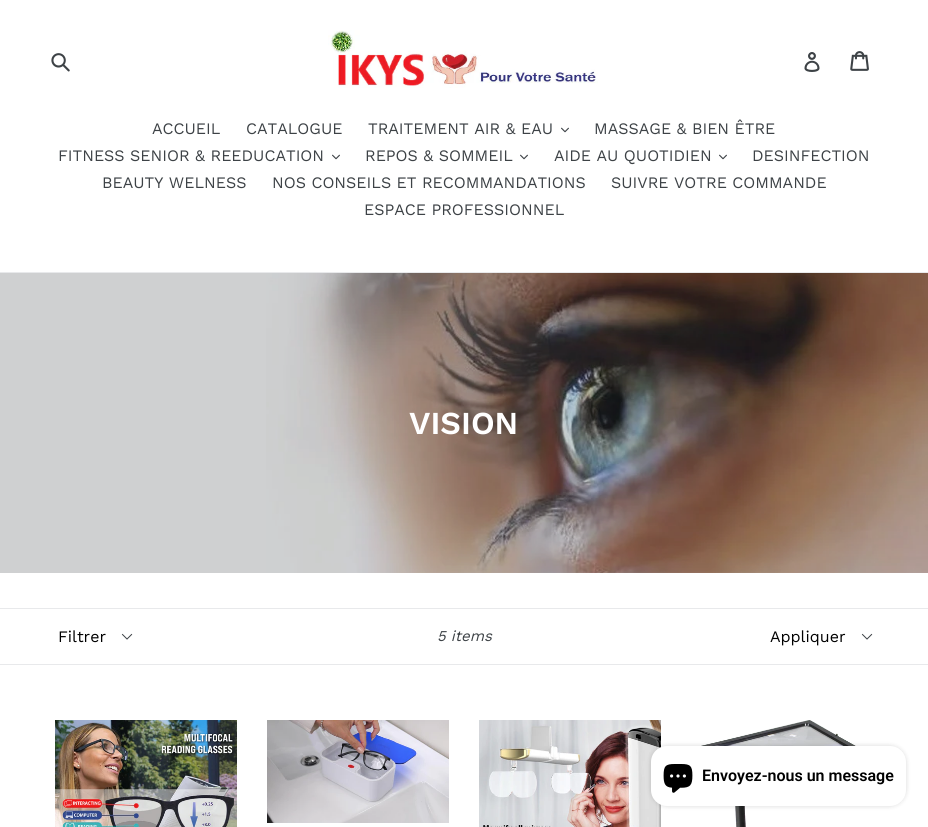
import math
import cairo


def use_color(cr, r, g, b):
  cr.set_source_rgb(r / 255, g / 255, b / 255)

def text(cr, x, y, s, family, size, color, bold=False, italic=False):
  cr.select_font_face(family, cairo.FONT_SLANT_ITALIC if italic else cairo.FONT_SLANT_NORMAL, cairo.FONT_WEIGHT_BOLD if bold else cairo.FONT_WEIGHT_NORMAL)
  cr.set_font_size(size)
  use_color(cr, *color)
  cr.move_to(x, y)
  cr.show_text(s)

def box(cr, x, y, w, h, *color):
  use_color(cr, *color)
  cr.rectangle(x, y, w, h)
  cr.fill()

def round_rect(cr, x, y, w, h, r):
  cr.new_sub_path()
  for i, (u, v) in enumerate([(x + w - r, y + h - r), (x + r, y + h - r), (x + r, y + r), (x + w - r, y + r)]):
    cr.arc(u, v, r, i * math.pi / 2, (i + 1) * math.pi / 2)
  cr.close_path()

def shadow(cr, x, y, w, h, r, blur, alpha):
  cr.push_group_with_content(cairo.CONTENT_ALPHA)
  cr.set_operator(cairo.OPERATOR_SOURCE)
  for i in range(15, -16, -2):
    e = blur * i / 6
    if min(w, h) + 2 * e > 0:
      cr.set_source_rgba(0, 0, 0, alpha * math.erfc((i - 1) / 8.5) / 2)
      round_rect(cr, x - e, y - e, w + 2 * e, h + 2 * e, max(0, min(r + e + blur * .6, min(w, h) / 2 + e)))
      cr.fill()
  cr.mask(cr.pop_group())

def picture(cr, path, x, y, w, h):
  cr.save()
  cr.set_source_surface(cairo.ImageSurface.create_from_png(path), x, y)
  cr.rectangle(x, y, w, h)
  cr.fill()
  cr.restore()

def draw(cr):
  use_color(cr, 255, 255, 255)
  cr.paint()
  box(cr, 0, 273, 928, 300, 207, 208, 209)
  picture(cr, "img_01.png", 51, 53, 19, 19)
  picture(cr, "img_02.png", 328, 30, 270, 58)
  picture(cr, "img_03.png", 804, 52, 16, 20)
  picture(cr, "img_04.png", 850, 51, 19, 20)
  box(cr, 0, 272, 928, 1, 232, 233, 235)
  picture(cr, "img_05.png", 561, 127, 8, 6)
  picture(cr, "img_05.png", 332, 154, 8, 6)
  picture(cr, "img_05.png", 520, 154, 8, 6)
  picture(cr, "img_05.png", 719, 154, 8, 6)
  picture(cr, "img_06.png", 266, 273, 662, 300)
  box(cr, 0, 608, 928, 1, 232, 233, 235)
  box(cr, 0, 664, 928, 1, 232, 233, 235)
  picture(cr, "img_07.png", 121, 633, 12, 7)
  picture(cr, "img_07.png", 861, 633, 12, 7)
  picture(cr, "img_08.png", 55, 720, 182, 107)
  picture(cr, "img_09.png", 267, 720, 182, 103)
  picture(cr, "img_10.png", 479, 720, 182, 107)
  picture(cr, "img_11.png", 701, 720, 155, 107)
  use_color(cr, 0, 0, 0)
  shadow(cr, 651, 746, 255, 60, 16, 2.5, 0.15)
  use_color(cr, 255, 255, 255)
  round_rect(cr, 651, 746, 255, 60, 16)
  cr.fill()
  picture(cr, "img_12.png", 663, 764, 30, 29)
  text(cr, 152, 134, "ACCUEIL", "Work Sans", 16, (61, 66, 70))
  text(cr, 246, 134, "CATALOGUE", "Work Sans", 16, (61, 66, 70))
  text(cr, 368, 134, "TRAITEMENT AIR & EAU", "Work Sans", 16, (61, 66, 70))
  text(cr, 594, 134, "MASSAGE & BIEN ÊTRE", "Work Sans", 16, (61, 66, 70))
  text(cr, 58, 161, "FITNESS SENIOR & REEDUCATION", "Work Sans", 16, (61, 66, 70))
  text(cr, 365, 161, "REPOS & SOMMEIL", "Work Sans", 16, (61, 66, 70))
  text(cr, 554, 161, "AIDE AU QUOTIDIEN", "Work Sans", 16, (61, 66, 70))
  text(cr, 752, 161, "DESINFECTION", "Work Sans", 16, (61, 66, 70))
  text(cr, 102, 188, "BEAUTY WELNESS", "Work Sans", 16, (61, 66, 70))
  text(cr, 272, 188, "NOS CONSEILS ET RECOMMANDATIONS", "Work Sans", 16, (61, 66, 70))
  text(cr, 611, 188, "SUIVRE VOTRE COMMANDE", "Work Sans", 16, (61, 66, 70))
  text(cr, 364, 215, "ESPACE PROFESSIONNEL", "Work Sans", 16, (61, 66, 70))
  text(cr, 409, 434, "VISION", "Work Sans SemiBold", 32, (255, 255, 255))
  text(cr, 58, 642, "Filtrer", "Work Sans", 16, (0, 0, 0))
  text(cr, 437, 641, "5 items", "Work Sans", 15, (61, 66, 70), italic=True)
  text(cr, 770, 642, "Appliquer", "Work Sans", 16, (0, 0, 0))
  text(cr, 702, 781, "Envoyez-nous un message", "Roboto SemiBold", 16, (0, 0, 0))


surface = cairo.ImageSurface(cairo.FORMAT_RGB24, 928, 827)
cr = cairo.Context(surface)
options = cairo.FontOptions()
options.set_hint_metrics(cairo.HINT_METRICS_OFF)
options.set_hint_style(cairo.HINT_STYLE_NONE)
cr.set_font_options(options)
cr.set_miter_limit(4)
draw(cr)
surface.write_to_png("out.png")
